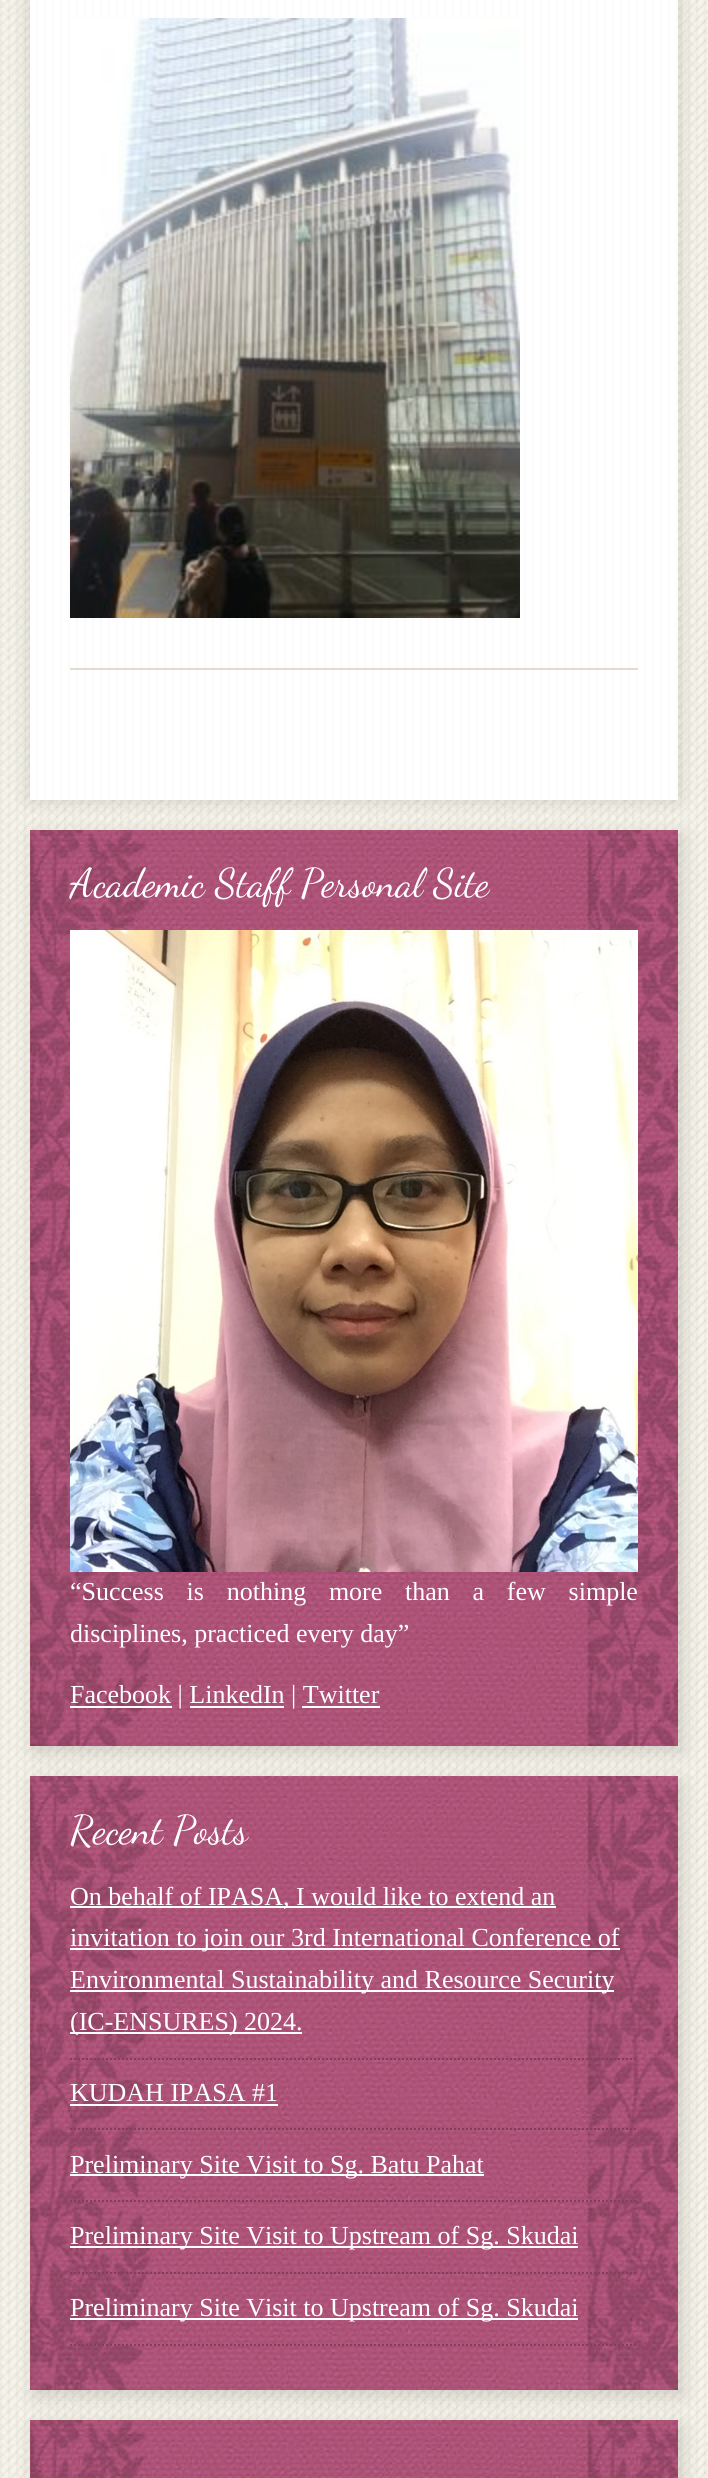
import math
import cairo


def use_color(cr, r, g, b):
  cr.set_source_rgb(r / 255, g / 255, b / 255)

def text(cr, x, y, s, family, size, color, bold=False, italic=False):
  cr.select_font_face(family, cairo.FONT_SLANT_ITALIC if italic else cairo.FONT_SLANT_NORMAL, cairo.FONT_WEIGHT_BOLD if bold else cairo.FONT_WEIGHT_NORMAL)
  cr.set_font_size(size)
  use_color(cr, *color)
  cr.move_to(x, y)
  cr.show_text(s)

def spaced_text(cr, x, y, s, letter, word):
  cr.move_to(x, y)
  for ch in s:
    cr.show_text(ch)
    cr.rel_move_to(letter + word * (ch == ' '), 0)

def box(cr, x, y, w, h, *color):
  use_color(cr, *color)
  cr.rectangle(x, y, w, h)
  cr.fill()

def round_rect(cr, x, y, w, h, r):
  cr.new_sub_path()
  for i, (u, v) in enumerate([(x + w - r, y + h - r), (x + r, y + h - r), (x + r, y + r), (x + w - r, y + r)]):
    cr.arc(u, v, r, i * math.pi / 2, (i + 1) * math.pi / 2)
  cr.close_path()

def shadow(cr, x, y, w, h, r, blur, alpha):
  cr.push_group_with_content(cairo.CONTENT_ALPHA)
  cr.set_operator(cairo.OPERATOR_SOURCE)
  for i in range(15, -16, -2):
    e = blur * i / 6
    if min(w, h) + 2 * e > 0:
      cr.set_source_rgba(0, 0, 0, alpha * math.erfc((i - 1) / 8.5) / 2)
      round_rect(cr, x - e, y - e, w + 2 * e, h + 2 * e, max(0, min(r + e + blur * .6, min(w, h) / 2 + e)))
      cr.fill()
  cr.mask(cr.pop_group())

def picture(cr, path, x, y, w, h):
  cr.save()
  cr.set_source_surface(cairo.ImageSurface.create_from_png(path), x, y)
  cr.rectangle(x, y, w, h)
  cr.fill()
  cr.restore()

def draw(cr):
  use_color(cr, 255, 255, 255)
  cr.paint()
  picture(cr, "img_01.png", 0, 0, 708, 2478)
  use_color(cr, 0, 0, 0)
  shadow(cr, 30, -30, 648, 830, 0, 10, 0.15)
  picture(cr, "img_02.png", 30, 0, 648, 800)
  picture(cr, "img_03.png", 70, 18, 450, 600)
  box(cr, 70, 668, 568, 2, 227, 219, 206)
  use_color(cr, 0, 0, 0)
  shadow(cr, 34, 836, 648, 916, 0, 10, 0.15)
  picture(cr, "img_04.png", 30, 830, 648, 916)
  picture(cr, "img_05.png", 70, 930, 568, 642)
  box(cr, 70, 1706, 102, 2, 255, 255, 255)
  box(cr, 190, 1706, 94, 2, 255, 255, 255)
  box(cr, 302, 1706, 78, 2, 255, 255, 255)
  use_color(cr, 0, 0, 0)
  shadow(cr, 34, 1782, 648, 614, 0, 10, 0.15)
  picture(cr, "img_06.png", 30, 1776, 648, 614)
  cr.new_path()
  cr.move_to(70, 2059)
  cr.line_to(638, 2059)
  use_color(cr, 128, 63, 90)
  cr.set_dash([2, 2])
  cr.stroke()
  box(cr, 70, 1906, 486, 2, 255, 255, 255)
  box(cr, 70, 1948, 550, 2, 255, 255, 255)
  box(cr, 70, 1990, 544, 2, 255, 255, 255)
  box(cr, 70, 2032, 232, 2, 255, 255, 255)
  cr.new_path()
  cr.move_to(70, 2129)
  cr.line_to(638, 2129)
  use_color(cr, 128, 63, 90)
  cr.stroke()
  box(cr, 70, 2104, 208, 2, 255, 255, 255)
  cr.new_path()
  cr.move_to(70, 2201)
  cr.line_to(638, 2201)
  use_color(cr, 128, 63, 90)
  cr.stroke()
  box(cr, 70, 2174, 414, 2, 255, 255, 255)
  cr.new_path()
  cr.move_to(70, 2273)
  cr.line_to(638, 2273)
  use_color(cr, 128, 63, 90)
  cr.stroke()
  box(cr, 70, 2246, 508, 2, 255, 255, 255)
  cr.new_path()
  cr.move_to(70, 2345)
  cr.line_to(638, 2345)
  use_color(cr, 128, 63, 90)
  cr.stroke()
  box(cr, 70, 2318, 508, 2, 255, 255, 255)
  use_color(cr, 0, 0, 0)
  shadow(cr, 34, 2426, 648, 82, 0, 10, 0.15)
  picture(cr, "img_07.png", 30, 2420, 648, 58)
  text(cr, 70, 896, "Academic Staff Personal Site", "Dancing Script", 40, (255, 255, 255))
  cr.select_font_face("Liberation Serif")
  cr.set_font_size(26)
  spaced_text(cr, 70, 1600, "“Success is nothing more than a few simple", 0, 16.25)
  text(cr, 70, 1642, "disciplines, practiced every day”", "Liberation Serif", 26, (255, 255, 255))
  text(cr, 70, 1703, "Facebook | LinkedIn | Twitter", "Liberation Serif", 26, (255, 255, 255))
  text(cr, 70, 1843, "Recent Posts", "Dancing Script", 40, (255, 255, 255))
  text(cr, 70, 1905, "On behalf of IPASA, I would like to extend an", "Liberation Serif", 26, (255, 255, 255))
  text(cr, 70, 1946, "invitation to join our 3rd International Conference of", "Liberation Serif", 26, (255, 255, 255))
  text(cr, 70, 1988, "Environmental Sustainability and Resource Security", "Liberation Serif", 26, (255, 255, 255))
  text(cr, 70, 2030, "(IC-ENSURES) 2024.", "Liberation Serif", 26, (255, 255, 255))
  text(cr, 70, 2101, "KUDAH IPASA #1", "Liberation Serif", 26, (255, 255, 255))
  text(cr, 70, 2173, "Preliminary Site Visit to Sg. Batu Pahat", "Liberation Serif", 26, (255, 255, 255))
  text(cr, 70, 2244, "Preliminary Site Visit to Upstream of Sg. Skudai", "Liberation Serif", 26, (255, 255, 255))
  text(cr, 70, 2316, "Preliminary Site Visit to Upstream of Sg. Skudai", "Liberation Serif", 26, (255, 255, 255))


surface = cairo.ImageSurface(cairo.FORMAT_RGB24, 708, 2478)
cr = cairo.Context(surface)
options = cairo.FontOptions()
options.set_hint_metrics(cairo.HINT_METRICS_OFF)
options.set_hint_style(cairo.HINT_STYLE_NONE)
cr.set_font_options(options)
cr.set_miter_limit(4)
draw(cr)
surface.write_to_png("out.png")
